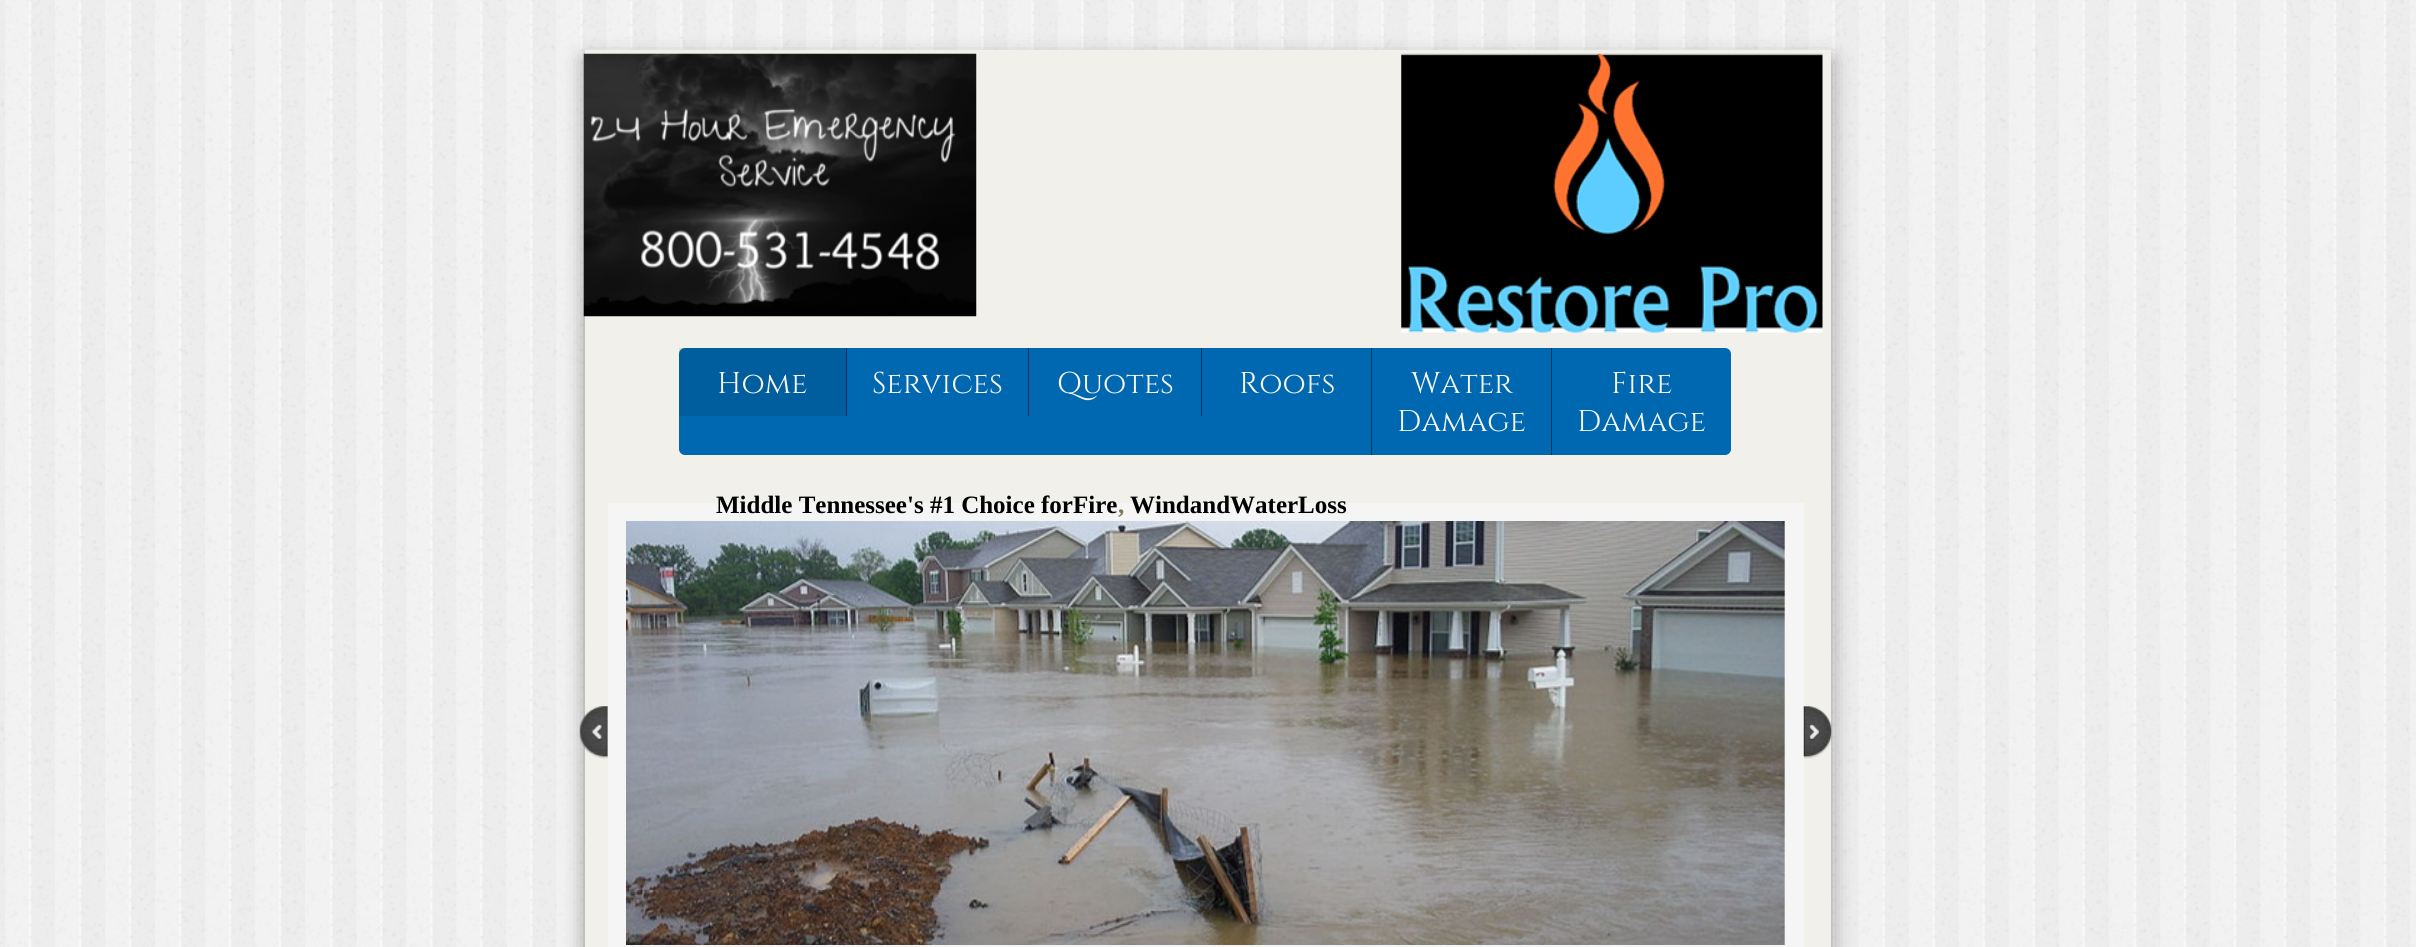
import math
import cairo


def use_color(cr, r, g, b):
  cr.set_source_rgb(r / 255, g / 255, b / 255)

def text(cr, x, y, s, family, size, color, bold=False, italic=False):
  cr.select_font_face(family, cairo.FONT_SLANT_ITALIC if italic else cairo.FONT_SLANT_NORMAL, cairo.FONT_WEIGHT_BOLD if bold else cairo.FONT_WEIGHT_NORMAL)
  cr.set_font_size(size)
  use_color(cr, *color)
  cr.move_to(x, y)
  cr.show_text(s)

def box(cr, x, y, w, h, *color):
  use_color(cr, *color)
  cr.rectangle(x, y, w, h)
  cr.fill()

def round_rect(cr, x, y, w, h, r):
  cr.new_sub_path()
  for i, (u, v) in enumerate([(x + w - r, y + h - r), (x + r, y + h - r), (x + r, y + r), (x + w - r, y + r)]):
    cr.arc(u, v, r, i * math.pi / 2, (i + 1) * math.pi / 2)
  cr.close_path()

def shadow(cr, x, y, w, h, r, blur, alpha):
  cr.push_group_with_content(cairo.CONTENT_ALPHA)
  cr.set_operator(cairo.OPERATOR_SOURCE)
  for i in range(15, -16, -2):
    e = blur * i / 6
    if min(w, h) + 2 * e > 0:
      cr.set_source_rgba(0, 0, 0, alpha * math.erfc((i - 1) / 8.5) / 2)
      round_rect(cr, x - e, y - e, w + 2 * e, h + 2 * e, max(0, min(r + e + blur * .6, min(w, h) / 2 + e)))
      cr.fill()
  cr.mask(cr.pop_group())

def picture(cr, path, x, y, w, h):
  cr.save()
  cr.set_source_surface(cairo.ImageSurface.create_from_png(path), x, y)
  cr.rectangle(x, y, w, h)
  cr.fill()
  cr.restore()

def draw(cr):
  use_color(cr, 255, 255, 255)
  cr.paint()
  picture(cr, "img_01.png", 0, 0, 2416, 947)
  use_color(cr, 50, 50, 50)
  shadow(cr, 585, 59, 1246, 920, 0, 10.5, 0.5)
  box(cr, 585, 50, 1246, 897, 241, 240, 235)
  picture(cr, "img_02.png", 583, 53, 394, 264)
  picture(cr, "img_03.png", 1401, 53, 422, 280)
  use_color(cr, 0, 104, 176)
  round_rect(cr, 679, 348, 1052, 107, 6)
  cr.fill()
  cr.set_source_rgba(0, 0, 0, 0.1)
  cr.rectangle(679, 348, 167, 68)
  cr.fill()
  box(cr, 846, 348, 1, 68, 0, 50, 85)
  box(cr, 1028, 348, 1, 68, 0, 50, 85)
  box(cr, 1201, 348, 1, 68, 0, 50, 85)
  box(cr, 1371, 348, 1, 107, 0, 50, 85)
  box(cr, 1551, 348, 1, 107, 0, 50, 85)
  picture(cr, "img_04.png", 579, 706, 29, 53)
  cr.rectangle(617.5, 512.5, 1177, 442)
  use_color(cr, 245, 245, 245)
  cr.set_line_width(19)
  cr.stroke()
  picture(cr, "img_05.png", 626, 521, 1159, 424)
  picture(cr, "img_06.png", 1803, 706, 29, 53)
  text(cr, 717, 393, "Home", "Cinzel", 30, (246, 245, 242))
  text(cr, 872, 393, "Services", "Cinzel", 30, (246, 245, 242))
  text(cr, 1057, 393, "Quotes", "Cinzel", 30, (246, 245, 242))
  text(cr, 1239, 393, "Roofs", "Cinzel", 30, (246, 245, 242))
  text(cr, 1411, 393, "Water", "Cinzel", 30, (246, 245, 242))
  text(cr, 1397, 431, "Damage", "Cinzel", 30, (246, 245, 242))
  text(cr, 1611, 393, "Fire", "Cinzel", 30, (246, 245, 242))
  text(cr, 1577, 431, "Damage", "Cinzel", 30, (246, 245, 242))
  text(cr, 716, 513, "Middle Tennessee's #1 Choice forFire", "Liberation Serif", 25, (0, 0, 0), bold=True)
  text(cr, 1118, 513, ",", "Liberation Serif", 25, (128, 116, 91), bold=True)
  text(cr, 1130, 513, "WindandWaterLoss", "Liberation Serif", 25, (0, 0, 0), bold=True)


surface = cairo.ImageSurface(cairo.FORMAT_RGB24, 2416, 947)
cr = cairo.Context(surface)
options = cairo.FontOptions()
options.set_hint_metrics(cairo.HINT_METRICS_OFF)
options.set_hint_style(cairo.HINT_STYLE_NONE)
cr.set_font_options(options)
cr.set_miter_limit(4)
draw(cr)
surface.write_to_png("out.png")
